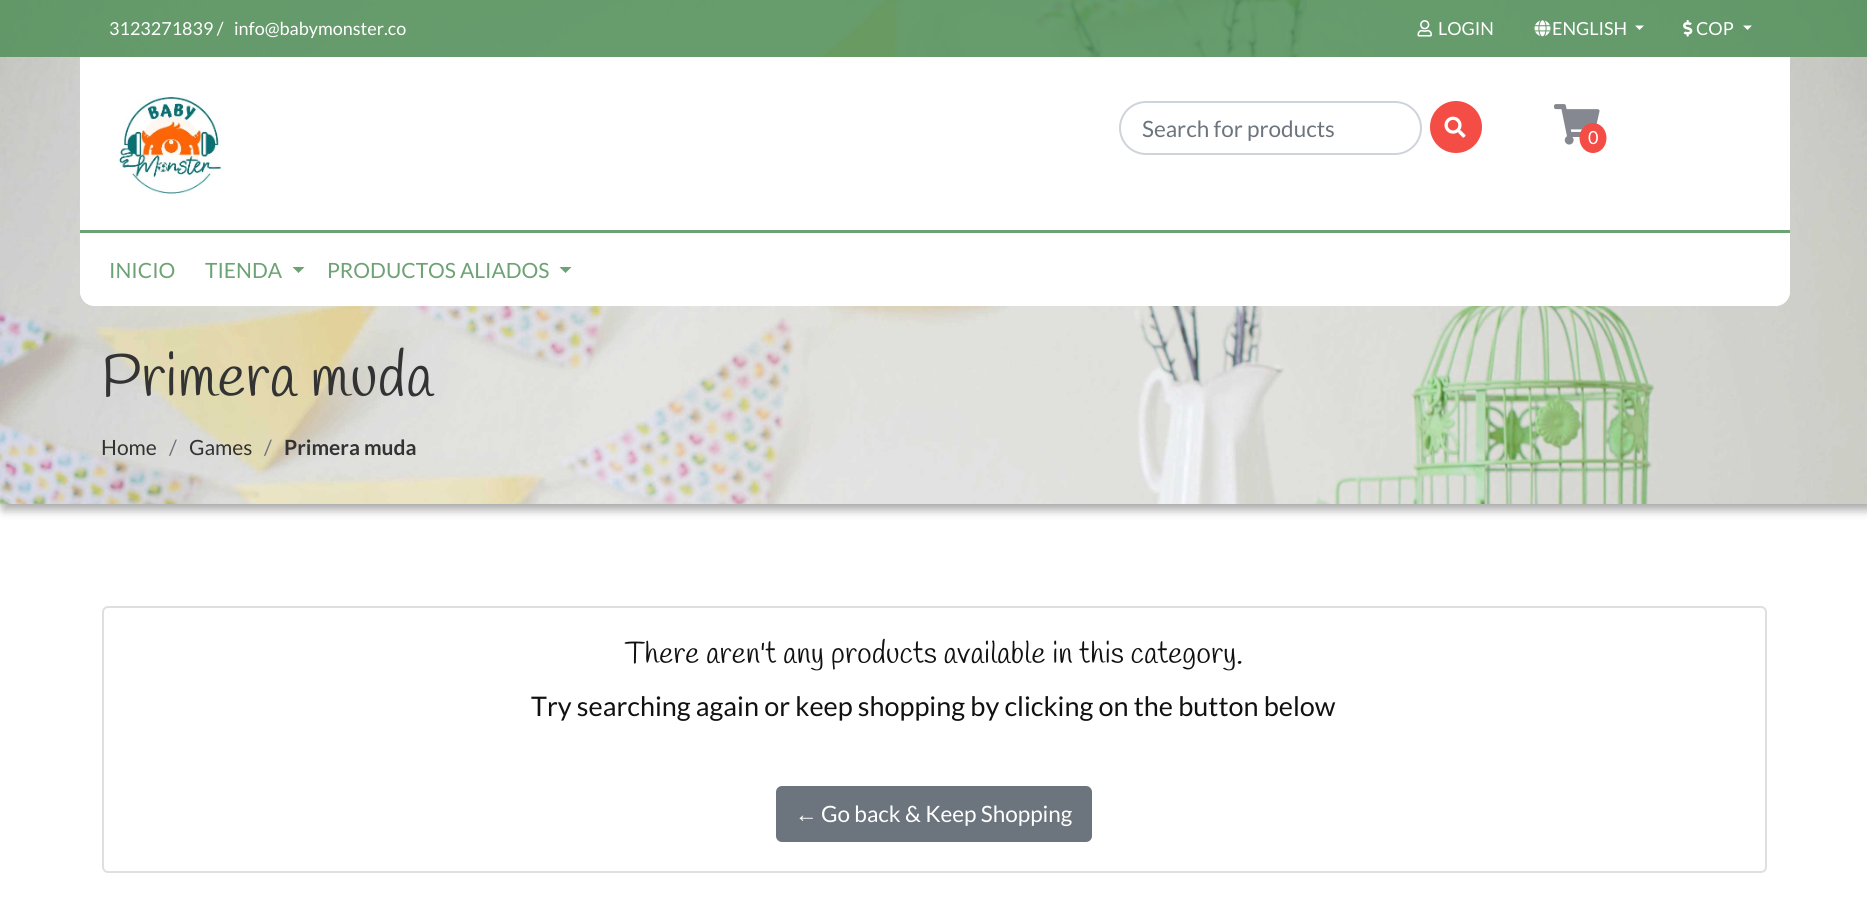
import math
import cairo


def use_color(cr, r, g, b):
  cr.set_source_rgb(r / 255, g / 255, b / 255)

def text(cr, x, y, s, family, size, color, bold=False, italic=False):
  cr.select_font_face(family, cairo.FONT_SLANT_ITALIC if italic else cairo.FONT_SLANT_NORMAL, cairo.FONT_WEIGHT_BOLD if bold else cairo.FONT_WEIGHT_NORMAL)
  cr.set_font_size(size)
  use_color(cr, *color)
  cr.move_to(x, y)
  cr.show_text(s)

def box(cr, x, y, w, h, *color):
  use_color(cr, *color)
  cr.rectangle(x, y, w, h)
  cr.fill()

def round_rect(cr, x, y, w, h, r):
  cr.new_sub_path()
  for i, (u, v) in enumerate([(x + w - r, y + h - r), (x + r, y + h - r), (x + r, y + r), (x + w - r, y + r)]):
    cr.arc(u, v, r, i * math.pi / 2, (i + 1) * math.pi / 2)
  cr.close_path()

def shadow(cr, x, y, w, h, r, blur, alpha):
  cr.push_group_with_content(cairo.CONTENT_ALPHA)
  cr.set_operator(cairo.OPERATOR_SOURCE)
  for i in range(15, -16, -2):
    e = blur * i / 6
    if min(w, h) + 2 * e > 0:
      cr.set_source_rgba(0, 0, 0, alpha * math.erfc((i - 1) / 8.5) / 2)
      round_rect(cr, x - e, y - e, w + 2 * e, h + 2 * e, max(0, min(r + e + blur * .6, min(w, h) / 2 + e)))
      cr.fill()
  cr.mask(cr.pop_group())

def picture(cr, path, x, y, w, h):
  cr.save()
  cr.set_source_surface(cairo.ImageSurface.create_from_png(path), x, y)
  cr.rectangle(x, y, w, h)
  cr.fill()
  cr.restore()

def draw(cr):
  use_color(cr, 255, 255, 255)
  cr.paint()
  use_color(cr, 0, 0, 0)
  shadow(cr, 0, 2, 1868, 504, 0, 4.5, 0.23)
  shadow(cr, 3, 8, 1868, 504, 0, 4, 0.19)
  picture(cr, "img_07.png", 0, 0, 1867, 504)
  cr.set_source_rgba(0.302, 0.557, 0.337, 0.82)
  cr.rectangle(0, 0, 1867, 57)
  cr.fill()
  picture(cr, "img_01.png", 1417, 20, 15, 17)
  picture(cr, "img_02.png", 1534, 20, 17, 17)
  use_color(cr, 255, 255, 255)
  cr.new_path()
  cr.move_to(1635, 25.5)
  cr.line_to(1644, 25.5)
  cr.line_to(1639.5, 30)
  cr.close_path()
  cr.fill()
  picture(cr, "img_03.png", 1683, 20, 10, 17)
  cr.new_path()
  cr.move_to(1743, 25.5)
  cr.line_to(1752, 25.5)
  cr.line_to(1747.5, 30)
  cr.close_path()
  cr.fill()
  cr.new_path()
  cr.move_to(80, 57)
  cr.line_to(1790, 57)
  cr.line_to(1790, 291)
  cr.curve_to(1790, 299.5, 1783.5, 306, 1775, 306)
  cr.line_to(95, 306)
  cr.curve_to(86.5, 306, 80, 299.5, 80, 291)
  cr.close_path()
  cr.fill()
  picture(cr, "img_04.png", 118, 96, 104, 101)
  round_rect(cr, 1120, 102, 301, 52, 26)
  use_color(cr, 206, 212, 218)
  cr.stroke()
  use_color(cr, 243, 77, 69)
  cr.arc(1456, 127, 26, 0, 2 * math.pi)
  cr.fill()
  picture(cr, "img_05.png", 1444, 116, 22, 22)
  picture(cr, "img_06.png", 1554, 104, 46, 41)
  cr.new_path()
  cr.move_to(1593, 123)
  cr.curve_to(1600.5, 123, 1606.5, 129.5, 1606.5, 138)
  cr.curve_to(1606.5, 146.5, 1600.5, 153, 1593, 153)
  cr.curve_to(1585.5, 153, 1579.5, 146.5, 1579.5, 138)
  cr.curve_to(1579.5, 129.5, 1585.5, 123, 1593, 123)
  cr.close_path()
  cr.fill()
  use_color(cr, 255, 255, 255)
  cr.new_path()
  cr.move_to(80, 230)
  cr.line_to(1790, 230)
  cr.line_to(1790, 291)
  cr.curve_to(1790, 299.5, 1783.5, 306, 1775, 306)
  cr.line_to(95, 306)
  cr.curve_to(86.5, 306, 80, 299.5, 80, 291)
  cr.close_path()
  cr.fill()
  box(cr, 80, 230, 1710, 3, 109, 162, 116)
  cr.new_path()
  cr.move_to(292.5, 267)
  cr.line_to(304.5, 267)
  cr.line_to(298.5, 273)
  cr.close_path()
  cr.fill()
  cr.new_path()
  cr.move_to(559.5, 267)
  cr.line_to(571.5, 267)
  cr.line_to(565.5, 273)
  cr.close_path()
  cr.fill()
  round_rect(cr, 103, 607, 1663, 265, 5)
  use_color(cr, 223, 223, 223)
  cr.stroke()
  use_color(cr, 108, 117, 125)
  round_rect(cr, 777, 787, 314, 54, 5)
  cr.fill_preserve()
  cr.stroke()
  text(cr, 109, 35, "3123271839 /", "Lato", 18, (255, 255, 255))
  text(cr, 234, 35, "info@babymonster.co", "Lato", 18, (255, 255, 255))
  text(cr, 1438, 35, "LOGIN", "Lato", 18, (255, 255, 255))
  text(cr, 1552, 35, "ENGLISH", "Lato", 18, (255, 255, 255))
  text(cr, 1696, 35, "COP", "Lato", 18, (255, 255, 255))
  text(cr, 1142, 137, "Search for products", "Lato", 22.5, (108, 117, 125))
  text(cr, 1588, 144, "0", "Lato", 18, (255, 255, 255))
  text(cr, 109, 278, "INICIO", "Lato", 21, (109, 162, 116))
  text(cr, 205, 278, "TIENDA", "Lato", 21, (109, 162, 116))
  text(cr, 327, 278, "PRODUCTOS ALIADOS", "Lato", 21, (109, 162, 116))
  text(cr, 101, 396, "Primera muda", "Handlee", 60, (51, 51, 51))
  text(cr, 101, 455, "Home", "Lato", 21, (51, 51, 51))
  text(cr, 169, 455, "/", "Lato", 21, (108, 117, 125))
  text(cr, 189, 455, "Games", "Lato", 21, (51, 51, 51))
  text(cr, 264, 455, "/", "Lato", 21, (108, 117, 125))
  text(cr, 284, 455, "Primera muda", "Lato", 21, (51, 51, 51), bold=True)
  text(cr, 625, 663, "There aren't any products available in this category.", "Handlee", 30, (18, 17, 17))
  text(cr, 531, 716, "Try searching again or keep shopping by clicking on the button below", "Lato", 27, (18, 17, 17))
  text(cr, 795, 822, "←", "Liberation Serif", 22.5, (255, 255, 255))
  text(cr, 821, 822, "Go back & Keep Shopping", "Lato", 22.5, (255, 255, 255))


surface = cairo.ImageSurface(cairo.FORMAT_RGB24, 1867, 909)
cr = cairo.Context(surface)
options = cairo.FontOptions()
options.set_hint_metrics(cairo.HINT_METRICS_OFF)
options.set_hint_style(cairo.HINT_STYLE_NONE)
cr.set_font_options(options)
cr.set_miter_limit(4)
draw(cr)
surface.write_to_png("out.png")
